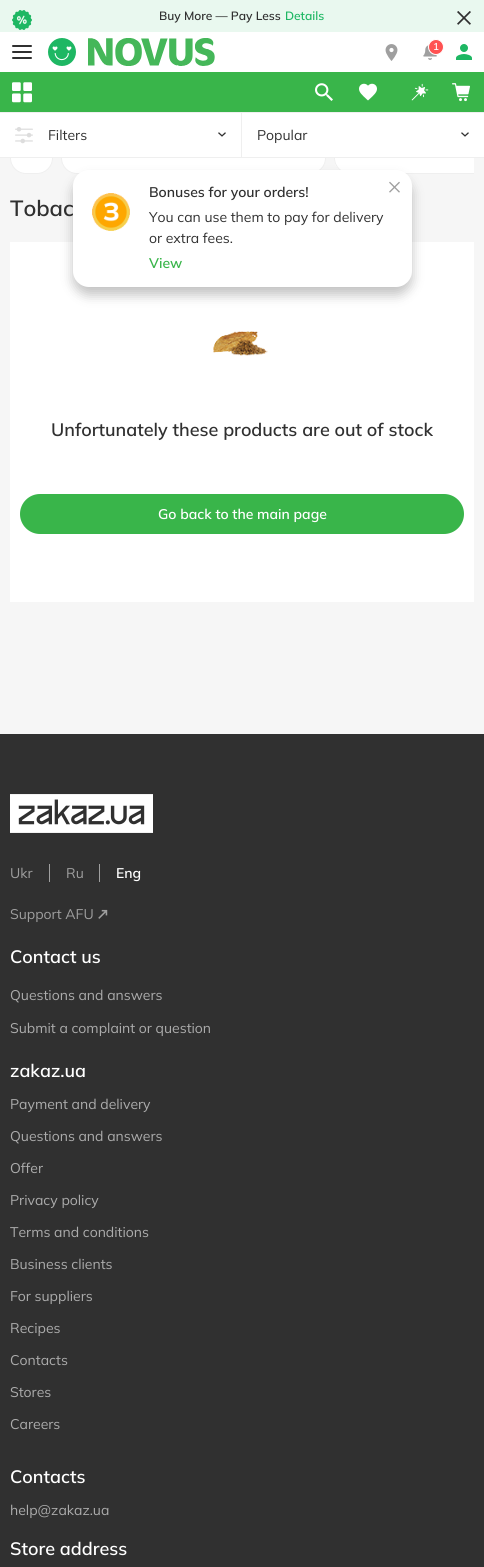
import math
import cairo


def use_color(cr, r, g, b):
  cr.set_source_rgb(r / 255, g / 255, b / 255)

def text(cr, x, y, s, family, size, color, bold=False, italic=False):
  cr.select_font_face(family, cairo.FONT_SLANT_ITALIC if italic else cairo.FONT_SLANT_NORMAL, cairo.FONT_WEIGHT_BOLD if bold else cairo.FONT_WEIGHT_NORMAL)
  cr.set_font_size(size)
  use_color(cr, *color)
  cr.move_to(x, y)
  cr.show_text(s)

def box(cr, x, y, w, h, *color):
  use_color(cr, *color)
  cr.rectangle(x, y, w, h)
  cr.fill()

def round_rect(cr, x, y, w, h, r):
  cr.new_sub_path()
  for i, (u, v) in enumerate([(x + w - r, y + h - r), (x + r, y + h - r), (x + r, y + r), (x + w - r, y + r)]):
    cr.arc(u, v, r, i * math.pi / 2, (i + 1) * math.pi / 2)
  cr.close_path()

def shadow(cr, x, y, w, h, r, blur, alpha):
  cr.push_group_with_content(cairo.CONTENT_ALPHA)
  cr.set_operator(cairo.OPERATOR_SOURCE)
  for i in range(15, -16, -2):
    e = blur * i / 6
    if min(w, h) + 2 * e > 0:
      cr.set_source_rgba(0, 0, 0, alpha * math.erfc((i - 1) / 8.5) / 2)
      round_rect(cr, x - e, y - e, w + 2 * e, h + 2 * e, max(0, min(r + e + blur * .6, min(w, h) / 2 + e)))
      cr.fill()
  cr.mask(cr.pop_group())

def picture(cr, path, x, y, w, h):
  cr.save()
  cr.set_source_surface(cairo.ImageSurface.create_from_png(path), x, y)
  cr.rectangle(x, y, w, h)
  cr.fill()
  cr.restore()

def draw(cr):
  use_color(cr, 246, 246, 246)
  cr.paint()
  box(cr, 0, 0, 484, 32, 233, 248, 239)
  picture(cr, "img_01.png", 12, 10, 20, 20)
  picture(cr, "img_02.png", 457, 11, 14, 14)
  box(cr, 0, 32, 484, 40, 255, 255, 255)
  use_color(cr, 48, 48, 48)
  round_rect(cr, 12, 45, 20, 2, 1)
  cr.fill()
  round_rect(cr, 12, 51, 20, 2, 1)
  cr.fill()
  round_rect(cr, 12, 57, 20, 2, 1)
  cr.fill()
  picture(cr, "img_03.png", 48, 38, 28, 28)
  picture(cr, "img_04.png", 88, 38, 127, 28)
  picture(cr, "img_05.png", 385, 44, 13, 17)
  picture(cr, "img_06.png", 423, 45, 14, 15)
  use_color(cr, 255, 82, 82)
  cr.arc(436, 47, 7.5, 0, 2 * math.pi)
  cr.fill_preserve()
  use_color(cr, 255, 255, 255)
  cr.set_line_width(1)
  cr.stroke()
  picture(cr, "img_07.png", 456, 44, 16, 16)
  box(cr, 0, 72, 484, 40, 57, 181, 74)
  picture(cr, "img_08.png", 12, 82, 20, 21)
  picture(cr, "img_09.png", 315, 83, 18, 18)
  picture(cr, "img_10.png", 359, 83, 18, 18)
  picture(cr, "img_11.png", 411, 83, 18, 18)
  picture(cr, "img_12.png", 452, 83, 18, 19)
  box(cr, 0, 112, 484, 1, 239, 239, 239)
  use_color(cr, 255, 255, 255)
  round_rect(cr, 61.5, 140.5, 264, 33, 15.5)
  cr.fill_preserve()
  use_color(cr, 239, 239, 239)
  cr.stroke()
  box(cr, 241, 113, 1, 45, 239, 239, 239)
  use_color(cr, 255, 255, 255)
  round_rect(cr, 10.5, 140.5, 42, 33, 15.5)
  cr.fill_preserve()
  use_color(cr, 239, 239, 239)
  cr.stroke()
  box(cr, 0, 113, 241, 44, 255, 255, 255)
  box(cr, 0, 157, 241, 1, 239, 239, 239)
  picture(cr, "img_13.png", 15, 127, 18, 17)
  picture(cr, "img_14.png", 218, 132, 8, 5)
  use_color(cr, 255, 255, 255)
  cr.new_path()
  cr.move_to(350, 140)
  cr.line_to(474, 140)
  cr.line_to(474, 174)
  cr.line_to(350, 174)
  cr.curve_to(341, 174, 334, 167, 334, 158)
  cr.line_to(334, 156)
  cr.curve_to(334, 147, 341, 140, 350, 140)
  cr.close_path()
  cr.fill()
  cr.save()
  cr.rectangle(10, 140, 464, 34)
  cr.clip()
  round_rect(cr, 334.5, 140.5, 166, 33, 15.5)
  use_color(cr, 239, 239, 239)
  cr.stroke()
  cr.restore()
  box(cr, 242, 113, 242, 44, 255, 255, 255)
  box(cr, 242, 157, 242, 1, 239, 239, 239)
  picture(cr, "img_14.png", 461, 132, 8, 5)
  box(cr, 10, 242, 464, 360, 255, 255, 255)
  use_color(cr, 0, 0, 0)
  shadow(cr, 73, 178, 339, 117, 16, 6, 0.24)
  picture(cr, "img_17.png", 213, 331, 55, 25)
  use_color(cr, 57, 181, 74)
  round_rect(cr, 20, 494, 444, 40, 20)
  cr.fill()
  box(cr, 0, 734, 484, 833, 48, 48, 48)
  picture(cr, "img_18.png", 10, 794, 143, 39)
  box(cr, 49, 864, 1, 18, 159, 159, 159)
  box(cr, 99, 864, 1, 18, 159, 159, 159)
  picture(cr, "img_19.png", 98, 909, 10, 10)
  text(cr, 159, 20, "Buy More — Pay Less", "Mulish SemiBold", 12, (48, 48, 48))
  text(cr, 285, 20, "Details", "Mulish SemiBold", 12, (30, 183, 99))
  text(cr, 433, 50, "1", "Mulish SemiBold", 10, (255, 255, 255))
  text(cr, 48, 140, "Filters", "Mulish", 14, (48, 48, 48))
  text(cr, 257, 140, "Popular", "Mulish", 14, (48, 48, 48))
  text(cr, 10, 216, "Tobac", "Mulish SemiBold", 22, (48, 48, 48))
  use_color(cr, 255, 255, 255)
  round_rect(cr, 73, 170, 339, 117, 16)
  cr.fill()
  picture(cr, "img_16.png", 389, 181, 11, 12)
  text(cr, 149, 268, "View", "Mulish SemiBold", 14, (57, 181, 74))
  text(cr, 149, 243, "or extra fees.", "Mulish", 14, (48, 48, 48))
  text(cr, 149, 222, "You can use them to pay for delivery", "Mulish", 14, (48, 48, 48))
  text(cr, 149, 197, "Bonuses for your orders!", "Mulish SemiBold", 14, (48, 48, 48))
  picture(cr, "img_15.png", 92, 193, 38, 38)
  text(cr, 51, 436, "Unfortunately these products are out of stock", "Mulish SemiBold", 18, (48, 48, 48))
  text(cr, 158, 519, "Go back to the main page", "Mulish SemiBold", 14, (255, 255, 255))
  text(cr, 10, 878, "Ukr", "Mulish", 14, (159, 159, 159))
  text(cr, 66, 878, "Ru", "Mulish", 14, (159, 159, 159))
  text(cr, 116, 878, "Eng", "Mulish SemiBold", 14, (255, 255, 255))
  text(cr, 10, 919, "Support AFU", "Mulish", 14, (159, 159, 159))
  text(cr, 10, 963, "Contact us", "Mulish SemiBold", 18, (255, 255, 255))
  text(cr, 10, 1000, "Questions and answers", "Mulish", 14, (172, 172, 172))
  text(cr, 10, 1033, "Submit a complaint or question", "Mulish", 14, (172, 172, 172))
  text(cr, 10, 1077, "zakaz.ua", "Mulish SemiBold", 18, (255, 255, 255))
  text(cr, 10, 1109, "Payment and delivery", "Mulish", 14, (172, 172, 172))
  text(cr, 10, 1141, "Questions and answers", "Mulish", 14, (172, 172, 172))
  text(cr, 10, 1173, "Offer", "Mulish", 14, (172, 172, 172))
  text(cr, 10, 1205, "Privacy policy", "Mulish", 14, (172, 172, 172))
  text(cr, 10, 1237, "Terms and conditions", "Mulish", 14, (172, 172, 172))
  text(cr, 10, 1269, "Business clients", "Mulish", 14, (172, 172, 172))
  text(cr, 10, 1301, "For suppliers", "Mulish", 14, (172, 172, 172))
  text(cr, 10, 1333, "Recipes", "Mulish", 14, (172, 172, 172))
  text(cr, 10, 1365, "Contacts", "Mulish", 14, (172, 172, 172))
  text(cr, 10, 1397, "Stores", "Mulish", 14, (172, 172, 172))
  text(cr, 10, 1429, "Careers", "Mulish", 14, (172, 172, 172))
  text(cr, 10, 1483, "Contacts", "Mulish SemiBold", 18, (255, 255, 255))
  text(cr, 10, 1515, "help@zakaz.ua", "Mulish", 14, (172, 172, 172))
  text(cr, 10, 1555, "Store address", "Mulish SemiBold", 18, (255, 255, 255))


surface = cairo.ImageSurface(cairo.FORMAT_RGB24, 484, 1567)
cr = cairo.Context(surface)
options = cairo.FontOptions()
options.set_hint_metrics(cairo.HINT_METRICS_OFF)
options.set_hint_style(cairo.HINT_STYLE_NONE)
cr.set_font_options(options)
cr.set_miter_limit(4)
draw(cr)
surface.write_to_png("out.png")
